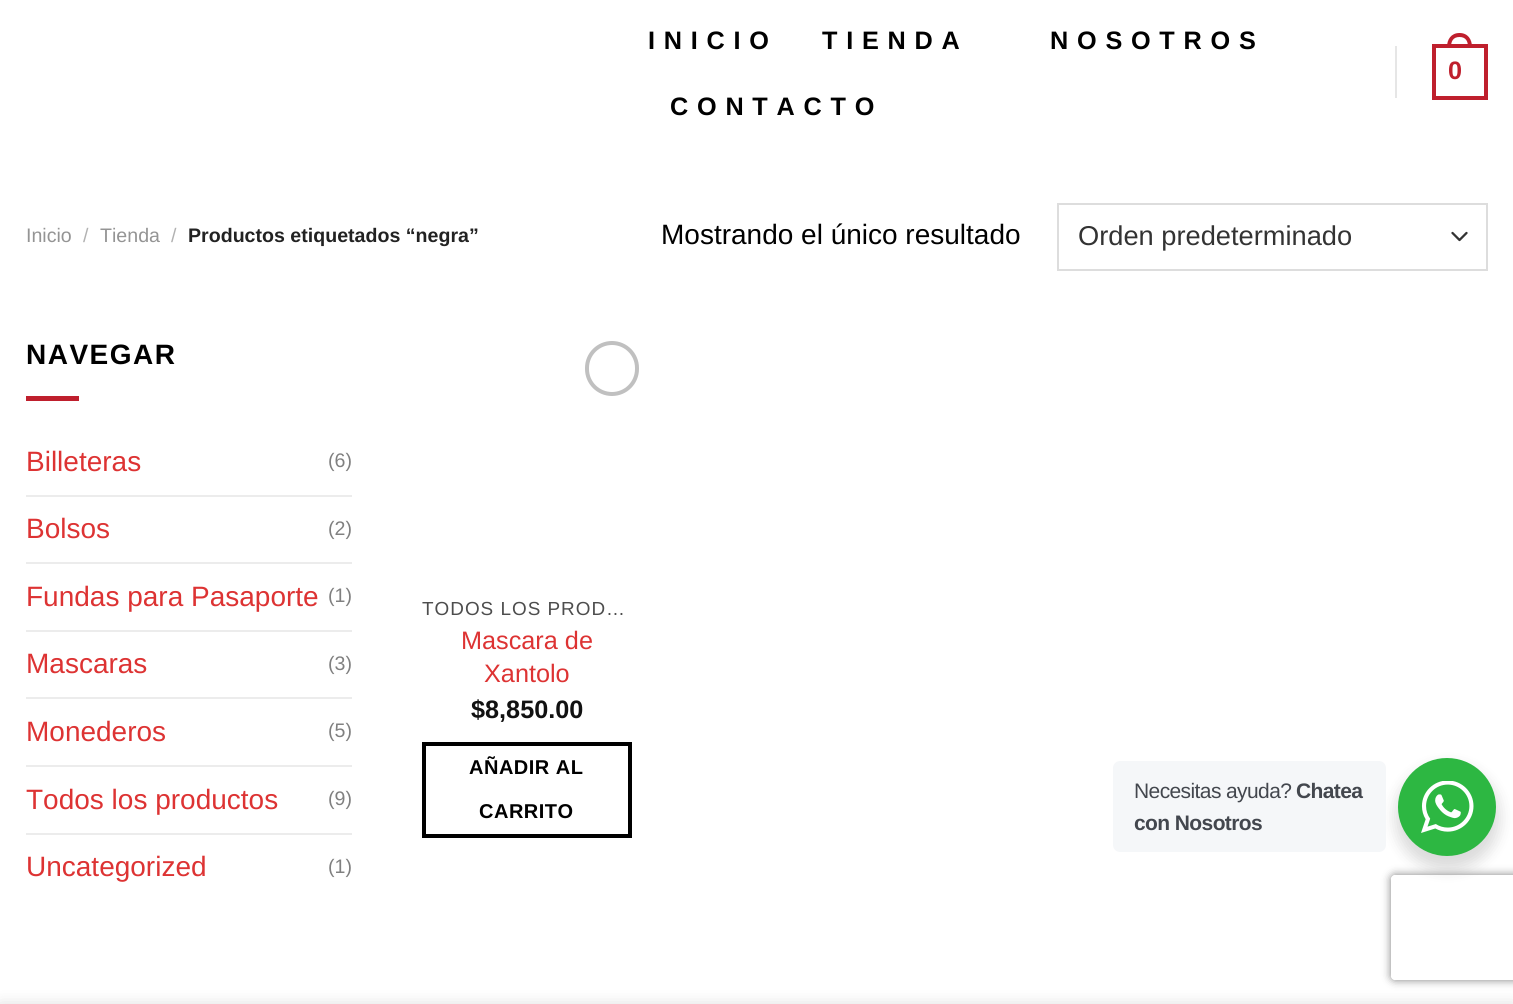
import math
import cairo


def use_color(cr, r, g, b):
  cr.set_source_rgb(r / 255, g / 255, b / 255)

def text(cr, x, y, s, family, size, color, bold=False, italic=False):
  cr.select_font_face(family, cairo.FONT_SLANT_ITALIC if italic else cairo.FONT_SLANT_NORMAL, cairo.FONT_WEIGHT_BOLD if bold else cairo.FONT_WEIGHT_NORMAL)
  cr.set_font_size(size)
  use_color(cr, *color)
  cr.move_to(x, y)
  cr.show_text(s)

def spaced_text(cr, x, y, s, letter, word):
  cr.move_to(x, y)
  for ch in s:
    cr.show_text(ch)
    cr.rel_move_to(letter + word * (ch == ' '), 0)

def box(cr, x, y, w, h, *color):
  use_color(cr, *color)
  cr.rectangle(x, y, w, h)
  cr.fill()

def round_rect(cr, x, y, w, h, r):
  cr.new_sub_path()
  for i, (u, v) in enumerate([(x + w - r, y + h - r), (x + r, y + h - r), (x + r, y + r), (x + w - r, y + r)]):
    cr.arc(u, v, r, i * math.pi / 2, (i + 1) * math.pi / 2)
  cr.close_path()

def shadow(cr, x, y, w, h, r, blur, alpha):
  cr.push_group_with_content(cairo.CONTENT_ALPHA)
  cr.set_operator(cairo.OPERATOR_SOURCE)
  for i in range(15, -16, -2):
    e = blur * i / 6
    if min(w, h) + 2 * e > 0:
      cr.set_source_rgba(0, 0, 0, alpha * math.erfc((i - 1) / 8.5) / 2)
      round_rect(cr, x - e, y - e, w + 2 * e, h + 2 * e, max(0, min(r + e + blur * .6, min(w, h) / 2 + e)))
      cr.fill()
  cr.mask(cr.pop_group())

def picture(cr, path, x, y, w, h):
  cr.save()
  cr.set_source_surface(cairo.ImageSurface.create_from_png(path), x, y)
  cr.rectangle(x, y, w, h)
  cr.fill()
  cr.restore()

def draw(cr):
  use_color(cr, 255, 255, 255)
  cr.paint()
  box(cr, 1395, 46, 2, 52, 230, 230, 230)
  cr.rectangle(1434, 46, 52, 52)
  use_color(cr, 191, 31, 45)
  cr.set_line_width(4)
  cr.stroke()
  cr.set_fill_rule(cairo.FILL_RULE_EVEN_ODD)
  cr.new_path()
  cr.move_to(1459.5, 33)
  cr.curve_to(1468, 33, 1472, 39.5, 1472, 47)
  cr.line_to(1447, 47)
  cr.curve_to(1447, 39.5, 1451, 33, 1459.5, 33)
  cr.close_path()
  cr.move_to(1459.5, 37)
  cr.curve_to(1466, 37, 1468, 41.5, 1468, 47)
  cr.line_to(1451, 47)
  cr.curve_to(1451, 41.5, 1453, 37, 1459.5, 37)
  cr.close_path()
  cr.fill()
  cr.new_path()
  cr.move_to(1452.5, 233)
  cr.line_to(1459.5, 240)
  cr.line_to(1466.5, 233)
  use_color(cr, 51, 51, 51)
  cr.set_line_width(2.3)
  cr.set_line_cap(cairo.LINE_CAP_ROUND)
  cr.set_line_join(cairo.LINE_JOIN_ROUND)
  cr.stroke()
  cr.rectangle(1058, 204, 429, 66)
  use_color(cr, 221, 221, 221)
  cr.set_line_width(2)
  cr.set_line_cap(cairo.LINE_CAP_BUTT)
  cr.set_line_join(cairo.LINE_JOIN_MITER)
  cr.stroke()
  box(cr, 26, 396, 53, 5, 191, 31, 45)
  box(cr, 26, 495, 326, 2, 236, 236, 236)
  box(cr, 26, 562, 326, 2, 236, 236, 236)
  box(cr, 26, 630, 326, 2, 236, 236, 236)
  box(cr, 26, 697, 326, 2, 236, 236, 236)
  box(cr, 26, 765, 326, 2, 236, 236, 236)
  box(cr, 26, 833, 326, 2, 236, 236, 236)
  round_rect(cr, 587, 343, 50, 51, 25)
  use_color(cr, 192, 192, 192)
  cr.set_line_width(4)
  cr.stroke()
  cr.rectangle(424, 744, 206, 92)
  use_color(cr, 0, 0, 0)
  cr.stroke()
  use_color(cr, 0, 0, 0)
  shadow(cr, 1395, 765, 105, 105, 52.5, 7, 0.14)
  use_color(cr, 245, 247, 249)
  round_rect(cr, 1113, 761, 273, 91, 7)
  cr.fill()
  use_color(cr, 45, 183, 66)
  cr.arc(1447, 807, 49, 0, 2 * math.pi)
  cr.fill()
  picture(cr, "img_01.png", 1421, 781, 53, 52)
  cr.save()
  cr.new_path()
  cr.move_to(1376, 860)
  cr.line_to(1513, 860)
  cr.line_to(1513, 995)
  cr.line_to(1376, 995)
  cr.close_path()
  cr.move_to(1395, 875)
  cr.line_to(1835, 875)
  cr.curve_to(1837, 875, 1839, 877, 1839, 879)
  cr.line_to(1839, 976)
  cr.curve_to(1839, 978, 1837, 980, 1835, 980)
  cr.line_to(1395, 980)
  cr.curve_to(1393, 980, 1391, 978, 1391, 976)
  cr.line_to(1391, 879)
  cr.curve_to(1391, 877, 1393, 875, 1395, 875)
  cr.close_path()
  cr.clip()
  use_color(cr, 128, 128, 128)
  shadow(cr, 1391, 875, 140, 105, 4, 4.5, 1)
  cr.restore()
  use_color(cr, 0, 0, 0)
  shadow(cr, 0, 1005, 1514, 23, 0, 8, 0.14)
  cr.select_font_face("Liberation Sans", cairo.FONT_SLANT_NORMAL, cairo.FONT_WEIGHT_BOLD)
  cr.set_font_size(25.25)
  use_color(cr, 0, 0, 0)
  spaced_text(cr, 648, 49, "INICIO", 8.75, 0)
  spaced_text(cr, 822, 49, "TIENDA", 8.75, 0)
  spaced_text(cr, 1050, 49, "NOSOTROS", 8.75, 0)
  spaced_text(cr, 670, 115, "CONTACTO", 8.75, 0)
  use_color(cr, 191, 31, 45)
  spaced_text(cr, 1448, 79, "0", 8.75, 0)
  text(cr, 26, 242, "Inicio", "Liberation Sans", 19.6, (148, 148, 148))
  text(cr, 83, 242, "/", "Liberation Sans", 19.6, (178, 178, 178))
  text(cr, 100, 242, "Tienda", "Liberation Sans", 19.6, (148, 148, 148))
  text(cr, 171, 242, "/", "Liberation Sans", 19.6, (178, 178, 178))
  text(cr, 188, 242, "Productos etiquetados “negra”", "Liberation Sans", 19.6, (34, 34, 34), bold=True)
  text(cr, 661, 244, "Mostrando el único resultado", "Liberation Sans", 28, (0, 0, 0))
  text(cr, 1078, 245, "Orden predeterminado", "Liberation Sans", 27.25, (51, 51, 51))
  cr.select_font_face("Liberation Sans", cairo.FONT_SLANT_NORMAL, cairo.FONT_WEIGHT_BOLD)
  cr.set_font_size(28)
  use_color(cr, 0, 0, 0)
  spaced_text(cr, 26, 364, "NAVEGAR", 1.5, 0)
  text(cr, 26, 471, "Billeteras", "Liberation Sans", 28, (221, 51, 51))
  text(cr, 328, 467, "(6)", "Liberation Sans", 19.6, (128, 128, 128))
  text(cr, 26, 538, "Bolsos", "Liberation Sans", 28, (221, 51, 51))
  text(cr, 328, 535, "(2)", "Liberation Sans", 19.6, (128, 128, 128))
  text(cr, 26, 606, "Fundas para Pasaporte", "Liberation Sans", 28, (221, 51, 51))
  text(cr, 328, 602, "(1)", "Liberation Sans", 19.6, (128, 128, 128))
  text(cr, 26, 673, "Mascaras", "Liberation Sans", 28, (221, 51, 51))
  text(cr, 328, 670, "(3)", "Liberation Sans", 19.6, (128, 128, 128))
  text(cr, 26, 741, "Monederos", "Liberation Sans", 28, (221, 51, 51))
  text(cr, 328, 737, "(5)", "Liberation Sans", 19.6, (128, 128, 128))
  text(cr, 26, 809, "Todos los productos", "Liberation Sans", 28, (221, 51, 51))
  text(cr, 328, 805, "(9)", "Liberation Sans", 19.6, (128, 128, 128))
  text(cr, 26, 876, "Uncategorized", "Liberation Sans", 28, (221, 51, 51))
  text(cr, 328, 873, "(1)", "Liberation Sans", 19.6, (128, 128, 128))
  cr.set_font_size(18.9)
  use_color(cr, 77, 77, 77)
  spaced_text(cr, 422, 615, "TODOS LOS PROD…", 1, 0)
  text(cr, 461, 649, "Mascara de", "Liberation Sans", 25.25, (221, 51, 51))
  text(cr, 484, 682, "Xantolo", "Liberation Sans", 25.25, (221, 51, 51))
  text(cr, 471, 718, "$8,850.00", "Liberation Sans", 25.25, (17, 17, 17), bold=True)
  cr.set_font_size(20)
  use_color(cr, 0, 0, 0)
  spaced_text(cr, 469, 774, "AÑADIR AL", 0.5, 0)
  spaced_text(cr, 479, 818, "CARRITO", 0.5, 0)
  cr.select_font_face("Liberation Sans")
  cr.set_font_size(21)
  use_color(cr, 67, 71, 78)
  spaced_text(cr, 1134, 798, "Necesitas ayuda?", -0.6, 0)
  cr.select_font_face("Liberation Sans", cairo.FONT_SLANT_NORMAL, cairo.FONT_WEIGHT_BOLD)
  spaced_text(cr, 1296, 798, "Chatea", -0.6, 0)
  spaced_text(cr, 1134, 830, "con Nosotros", -0.6, 0)


surface = cairo.ImageSurface(cairo.FORMAT_RGB24, 1513, 1004)
cr = cairo.Context(surface)
options = cairo.FontOptions()
options.set_hint_metrics(cairo.HINT_METRICS_OFF)
options.set_hint_style(cairo.HINT_STYLE_NONE)
cr.set_font_options(options)
cr.set_miter_limit(4)
draw(cr)
surface.write_to_png("out.png")
